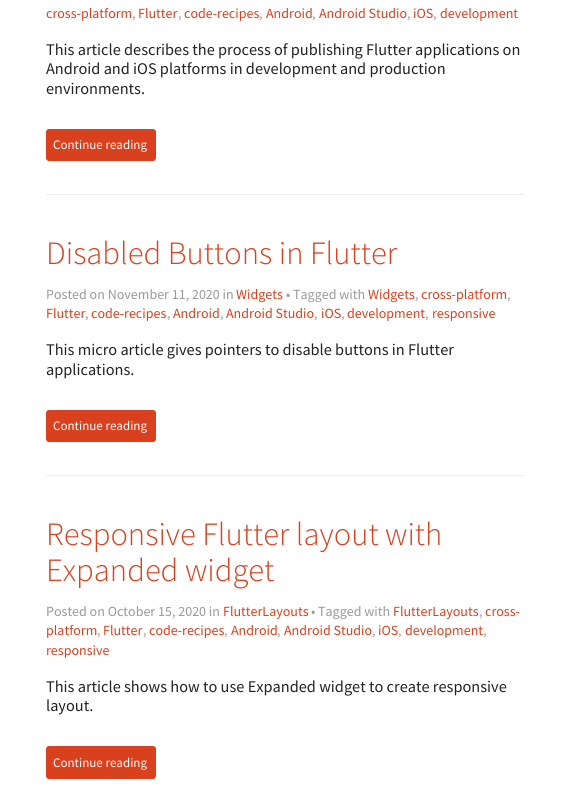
import math
import cairo


def use_color(cr, r, g, b):
  cr.set_source_rgb(r / 255, g / 255, b / 255)

def text(cr, x, y, s, family, size, color, bold=False, italic=False):
  cr.select_font_face(family, cairo.FONT_SLANT_ITALIC if italic else cairo.FONT_SLANT_NORMAL, cairo.FONT_WEIGHT_BOLD if bold else cairo.FONT_WEIGHT_NORMAL)
  cr.set_font_size(size)
  use_color(cr, *color)
  cr.move_to(x, y)
  cr.show_text(s)

def box(cr, x, y, w, h, *color):
  use_color(cr, *color)
  cr.rectangle(x, y, w, h)
  cr.fill()

def round_rect(cr, x, y, w, h, r):
  cr.new_sub_path()
  for i, (u, v) in enumerate([(x + w - r, y + h - r), (x + r, y + h - r), (x + r, y + r), (x + w - r, y + r)]):
    cr.arc(u, v, r, i * math.pi / 2, (i + 1) * math.pi / 2)
  cr.close_path()

def draw(cr):
  use_color(cr, 255, 255, 255)
  cr.paint()
  use_color(cr, 217, 65, 30)
  round_rect(cr, 46, 129, 110, 32, 3)
  cr.fill()
  box(cr, 46, 194, 478, 1, 238, 238, 238)
  use_color(cr, 217, 65, 30)
  round_rect(cr, 46, 410, 110, 32, 3)
  cr.fill()
  box(cr, 46, 475, 478, 1, 238, 238, 238)
  use_color(cr, 217, 65, 30)
  round_rect(cr, 46, 746, 110, 33, 3)
  cr.fill()
  text(cr, 46, 18, "cross-platform", "Source Sans Pro", 14, (217, 65, 30))
  text(cr, 132, 18, ",", "Source Sans Pro", 14, (153, 153, 153))
  text(cr, 138, 18, "Flutter", "Source Sans Pro", 14, (217, 65, 30))
  text(cr, 178, 18, ",", "Source Sans Pro", 14, (153, 153, 153))
  text(cr, 184, 18, "code-recipes", "Source Sans Pro", 14, (217, 65, 30))
  text(cr, 259, 18, ",", "Source Sans Pro", 14, (153, 153, 153))
  text(cr, 266, 18, "Android", "Source Sans Pro", 14, (217, 65, 30))
  text(cr, 312, 18, ",", "Source Sans Pro", 14, (153, 153, 153))
  text(cr, 319, 18, "Android Studio", "Source Sans Pro", 14, (217, 65, 30))
  text(cr, 407, 18, ",", "Source Sans Pro", 14, (153, 153, 153))
  text(cr, 413, 18, "iOS", "Source Sans Pro", 14, (217, 65, 30))
  text(cr, 433, 18, ",", "Source Sans Pro", 14, (153, 153, 153))
  text(cr, 440, 18, "development", "Source Sans Pro", 14, (217, 65, 30))
  text(cr, 46, 55, "This article describes the process of publishing Flutter applications on", "Source Sans Pro", 16.3, (36, 33, 33))
  text(cr, 46, 74, "Android and iOS platforms in development and production", "Source Sans Pro", 16.3, (36, 33, 33))
  text(cr, 46, 94, "environments.", "Source Sans Pro", 16.3, (36, 33, 33))
  text(cr, 53, 149, "Continue reading", "Source Sans Pro", 13, (255, 255, 255))
  text(cr, 46, 264, "Disabled Buttons in Flutter", "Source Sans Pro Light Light", 32.6, (217, 65, 30))
  text(cr, 46, 299, "Posted on November 11, 2020 in", "Source Sans Pro", 14, (153, 153, 153))
  text(cr, 236, 299, "Widgets", "Source Sans Pro", 14, (217, 65, 30))
  text(cr, 286, 299, "• Tagged with", "Source Sans Pro", 14, (153, 153, 153))
  text(cr, 368, 299, "Widgets", "Source Sans Pro", 14, (217, 65, 30))
  text(cr, 415, 299, ",", "Source Sans Pro", 14, (153, 153, 153))
  text(cr, 421, 299, "cross-platform", "Source Sans Pro", 14, (217, 65, 30))
  text(cr, 507, 299, ",", "Source Sans Pro", 14, (153, 153, 153))
  text(cr, 46, 318, "Flutter", "Source Sans Pro", 14, (217, 65, 30))
  text(cr, 85, 318, ",", "Source Sans Pro", 14, (153, 153, 153))
  text(cr, 91, 318, "code-recipes", "Source Sans Pro", 14, (217, 65, 30))
  text(cr, 167, 318, ",", "Source Sans Pro", 14, (153, 153, 153))
  text(cr, 173, 318, "Android", "Source Sans Pro", 14, (217, 65, 30))
  text(cr, 220, 318, ",", "Source Sans Pro", 14, (153, 153, 153))
  text(cr, 226, 318, "Android Studio", "Source Sans Pro", 14, (217, 65, 30))
  text(cr, 314, 318, ",", "Source Sans Pro", 14, (153, 153, 153))
  text(cr, 321, 318, "iOS", "Source Sans Pro", 14, (217, 65, 30))
  text(cr, 341, 318, ",", "Source Sans Pro", 14, (153, 153, 153))
  text(cr, 347, 318, "development", "Source Sans Pro", 14, (217, 65, 30))
  text(cr, 425, 318, ",", "Source Sans Pro", 14, (153, 153, 153))
  text(cr, 432, 318, "responsive", "Source Sans Pro", 14, (217, 65, 30))
  text(cr, 46, 355, "This micro article gives pointers to disable buttons in Flutter", "Source Sans Pro", 16.3, (36, 33, 33))
  text(cr, 46, 375, "applications.", "Source Sans Pro", 16.3, (36, 33, 33))
  text(cr, 53, 430, "Continue reading", "Source Sans Pro", 13, (255, 255, 255))
  text(cr, 46, 545, "Responsive Flutter layout with", "Source Sans Pro Light Light", 32.6, (217, 65, 30))
  text(cr, 46, 581, "Expanded widget", "Source Sans Pro Light Light", 32.6, (217, 65, 30))
  text(cr, 46, 616, "Posted on October 15, 2020 in", "Source Sans Pro", 14, (153, 153, 153))
  text(cr, 223, 616, "FlutterLayouts", "Source Sans Pro", 14, (217, 65, 30))
  text(cr, 311, 616, "• Tagged with", "Source Sans Pro", 14, (153, 153, 153))
  text(cr, 393, 616, "FlutterLayouts", "Source Sans Pro", 14, (217, 65, 30))
  text(cr, 479, 616, ",", "Source Sans Pro", 14, (153, 153, 153))
  text(cr, 485, 616, "cross-", "Source Sans Pro", 14, (217, 65, 30))
  text(cr, 46, 635, "platform", "Source Sans Pro", 14, (217, 65, 30))
  text(cr, 97, 635, ",", "Source Sans Pro", 14, (153, 153, 153))
  text(cr, 103, 635, "Flutter", "Source Sans Pro", 14, (217, 65, 30))
  text(cr, 143, 635, ",", "Source Sans Pro", 14, (153, 153, 153))
  text(cr, 149, 635, "code-recipes", "Source Sans Pro", 14, (217, 65, 30))
  text(cr, 224, 635, ",", "Source Sans Pro", 14, (153, 153, 153))
  text(cr, 231, 635, "Android", "Source Sans Pro", 14, (217, 65, 30))
  text(cr, 277, 635, ",", "Source Sans Pro", 14, (153, 153, 153))
  text(cr, 284, 635, "Android Studio", "Source Sans Pro", 14, (217, 65, 30))
  text(cr, 372, 635, ",", "Source Sans Pro", 14, (153, 153, 153))
  text(cr, 378, 635, "iOS", "Source Sans Pro", 14, (217, 65, 30))
  text(cr, 398, 635, ",", "Source Sans Pro", 14, (153, 153, 153))
  text(cr, 405, 635, "development", "Source Sans Pro", 14, (217, 65, 30))
  text(cr, 483, 635, ",", "Source Sans Pro", 14, (153, 153, 153))
  text(cr, 46, 655, "responsive", "Source Sans Pro", 14, (217, 65, 30))
  text(cr, 46, 692, "This article shows how to use Expanded widget to create responsive", "Source Sans Pro", 16.3, (36, 33, 33))
  text(cr, 46, 711, "layout.", "Source Sans Pro", 16.3, (36, 33, 33))
  text(cr, 53, 767, "Continue reading", "Source Sans Pro", 13, (255, 255, 255))


surface = cairo.ImageSurface(cairo.FORMAT_RGB24, 570, 811)
cr = cairo.Context(surface)
options = cairo.FontOptions()
options.set_hint_metrics(cairo.HINT_METRICS_OFF)
options.set_hint_style(cairo.HINT_STYLE_NONE)
cr.set_font_options(options)
cr.set_miter_limit(4)
draw(cr)
surface.write_to_png("out.png")
